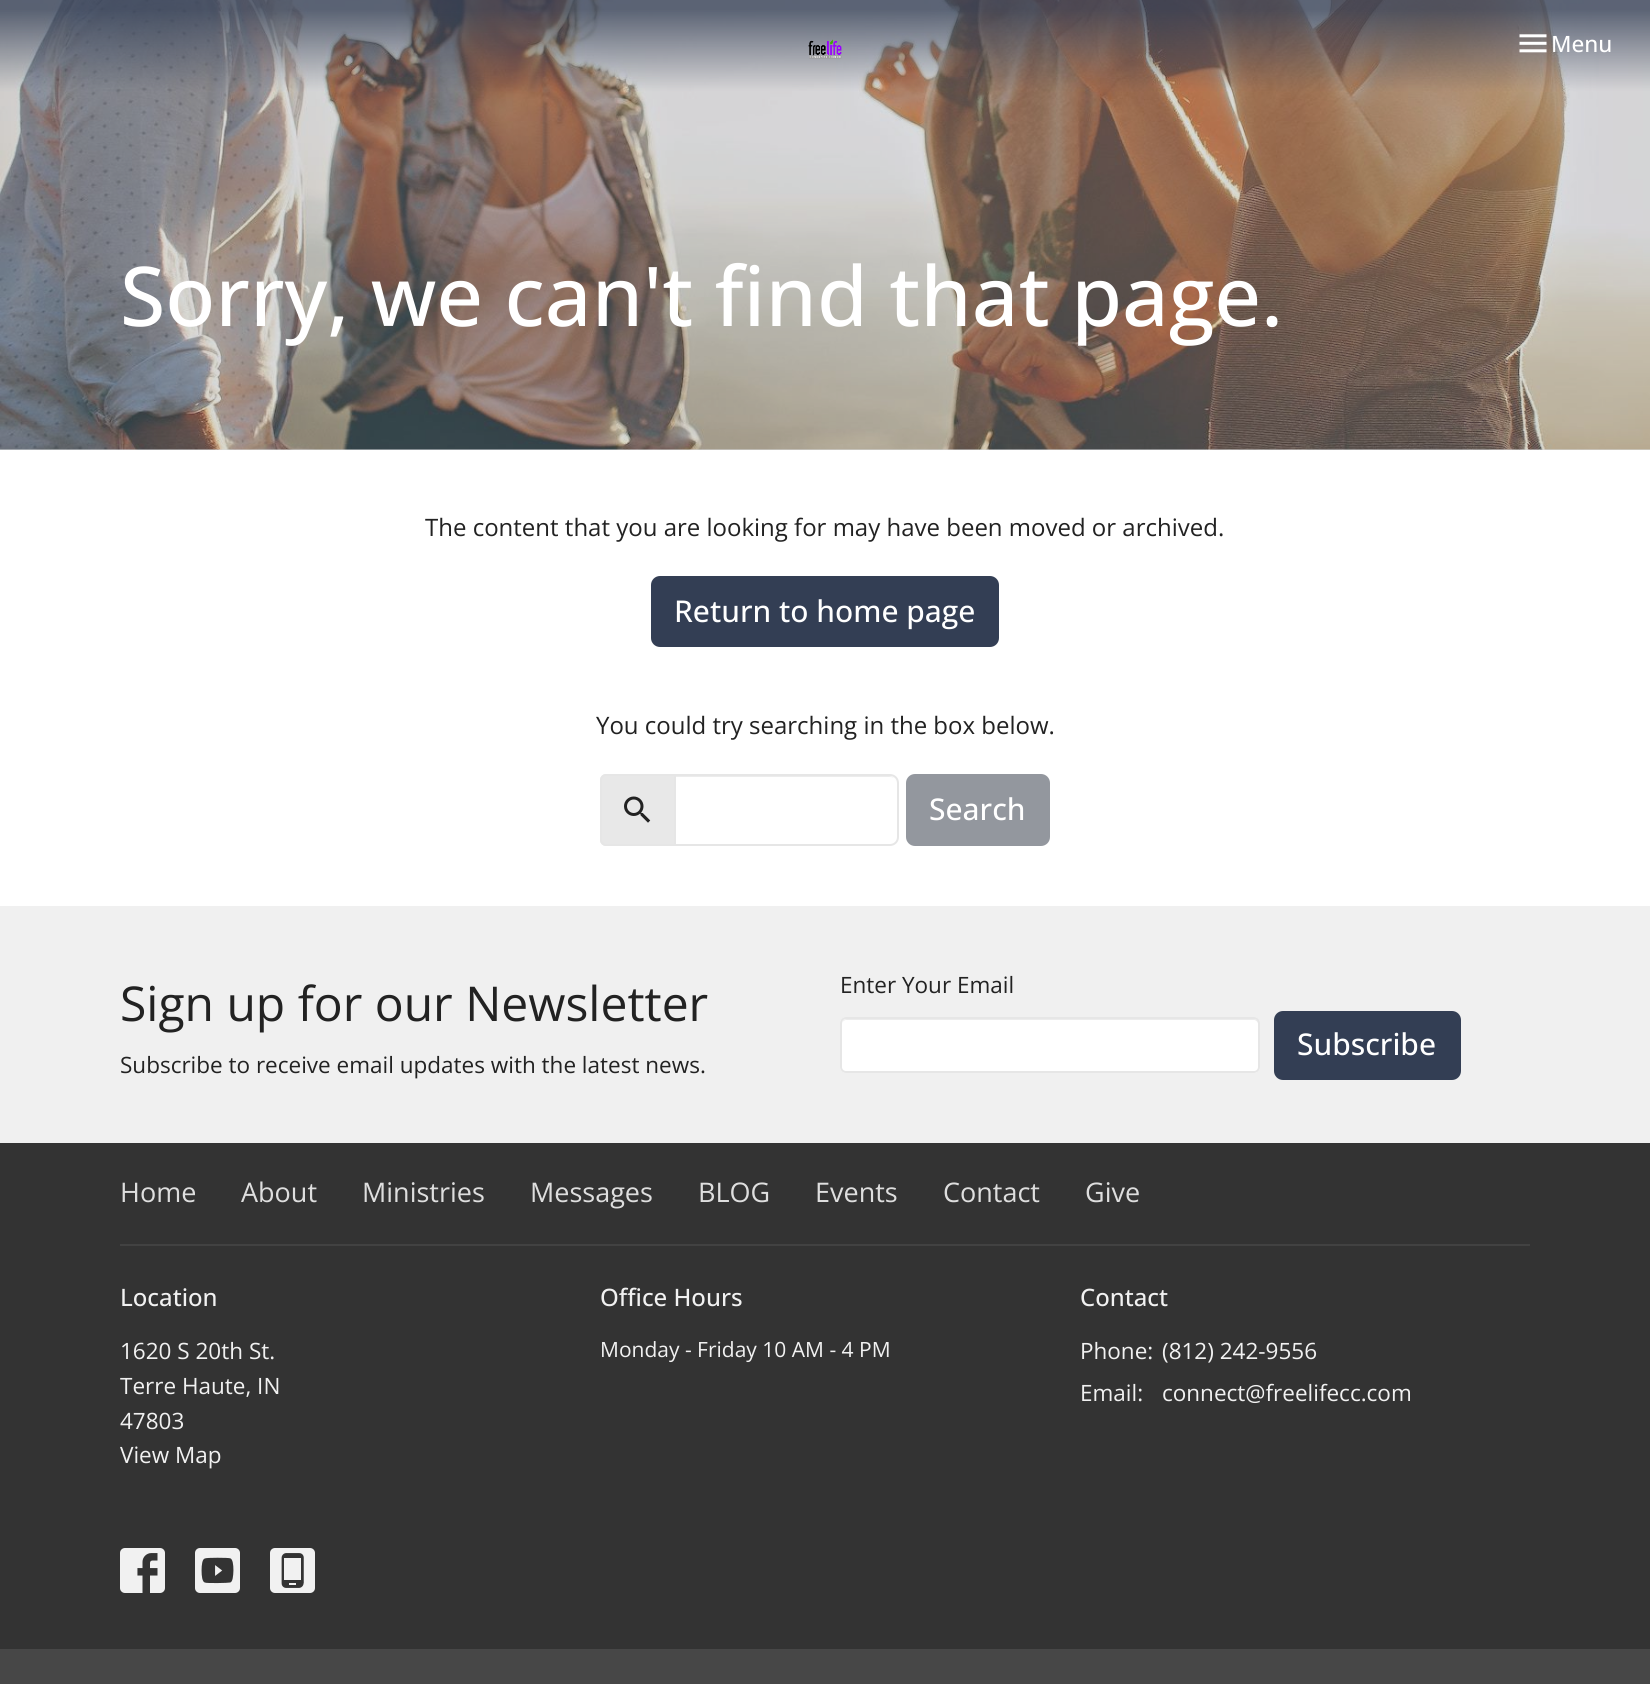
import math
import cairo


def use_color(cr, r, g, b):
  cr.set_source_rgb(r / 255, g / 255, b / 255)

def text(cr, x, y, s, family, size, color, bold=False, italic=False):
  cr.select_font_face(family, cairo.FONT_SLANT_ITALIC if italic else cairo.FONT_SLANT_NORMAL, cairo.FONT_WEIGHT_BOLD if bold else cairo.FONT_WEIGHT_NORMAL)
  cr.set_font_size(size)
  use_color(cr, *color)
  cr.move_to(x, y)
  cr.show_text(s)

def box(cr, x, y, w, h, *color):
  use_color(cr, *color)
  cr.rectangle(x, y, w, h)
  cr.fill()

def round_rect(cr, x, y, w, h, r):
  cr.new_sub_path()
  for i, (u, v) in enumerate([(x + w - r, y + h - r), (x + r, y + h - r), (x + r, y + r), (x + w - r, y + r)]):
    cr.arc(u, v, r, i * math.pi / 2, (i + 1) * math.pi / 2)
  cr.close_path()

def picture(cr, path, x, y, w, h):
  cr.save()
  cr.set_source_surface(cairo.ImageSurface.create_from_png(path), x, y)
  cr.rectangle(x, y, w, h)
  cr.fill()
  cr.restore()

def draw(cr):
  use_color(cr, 255, 255, 255)
  cr.paint()
  box(cr, 0, 449, 1650, 1, 217, 219, 221)
  picture(cr, "img_03.png", 0, 0, 1650, 450)
  picture(cr, "img_01.png", 808, 39, 34, 20)
  picture(cr, "img_02.png", 1519, 34, 28, 19)
  use_color(cr, 51, 62, 84)
  round_rect(cr, 651, 576, 348, 71, 9)
  cr.fill()
  use_color(cr, 232, 232, 232)
  cr.new_path()
  cr.move_to(606, 774)
  cr.line_to(674, 774)
  cr.line_to(674, 846)
  cr.line_to(606, 846)
  cr.curve_to(602.5, 846, 600, 843.5, 600, 840)
  cr.line_to(600, 780)
  cr.curve_to(600, 776.5, 602.5, 774, 606, 774)
  cr.close_path()
  cr.fill()
  use_color(cr, 230, 230, 230)
  cr.set_fill_rule(cairo.FILL_RULE_EVEN_ODD)
  cr.new_path()
  cr.move_to(606, 774)
  cr.line_to(674, 774)
  cr.line_to(674, 846)
  cr.line_to(606, 846)
  cr.curve_to(603, 846, 600, 843, 600, 840)
  cr.line_to(600, 780)
  cr.curve_to(600, 777, 603, 774, 606, 774)
  cr.close_path()
  cr.move_to(606, 776)
  cr.line_to(674, 776)
  cr.line_to(674, 844)
  cr.line_to(606, 844)
  cr.curve_to(604, 844, 602, 842, 602, 840)
  cr.line_to(602, 780)
  cr.curve_to(602, 778, 604, 776, 606, 776)
  cr.close_path()
  cr.fill()
  picture(cr, "img_04.png", 624, 796, 27, 27)
  use_color(cr, 236, 236, 236)
  cr.set_fill_rule(cairo.FILL_RULE_WINDING)
  cr.new_path()
  cr.move_to(675, 777)
  cr.line_to(890, 777)
  cr.curve_to(894, 777, 897, 780, 897, 784)
  cr.curve_to(897, 780, 893, 776, 889, 776)
  cr.line_to(675, 776)
  cr.close_path()
  cr.fill()
  cr.new_path()
  cr.move_to(675, 775)
  cr.line_to(890, 775)
  cr.curve_to(894.5, 775, 898, 778.5, 898, 783)
  cr.line_to(898, 837)
  cr.curve_to(898, 841.5, 894.5, 845, 890, 845)
  cr.line_to(675, 845)
  cr.close_path()
  use_color(cr, 230, 230, 230)
  cr.stroke()
  use_color(cr, 147, 151, 158)
  round_rect(cr, 906, 774, 144, 72, 9)
  cr.fill()
  box(cr, 0, 906, 1650, 237, 240, 240, 240)
  use_color(cr, 255, 255, 255)
  round_rect(cr, 840, 1017, 420, 56, 6)
  cr.fill()
  use_color(cr, 236, 236, 236)
  cr.new_path()
  cr.move_to(846, 1020)
  cr.line_to(1254, 1020)
  cr.curve_to(1256, 1020, 1258, 1022, 1258, 1024)
  cr.line_to(1258, 1069)
  cr.curve_to(1259, 1068, 1259, 1067, 1259, 1066)
  cr.line_to(1259, 1024)
  cr.curve_to(1259, 1021, 1257, 1019, 1254, 1019)
  cr.line_to(847, 1019)
  cr.curve_to(844, 1019, 842, 1021, 842, 1024)
  cr.curve_to(842, 1022, 844, 1020, 846, 1020)
  cr.close_path()
  cr.fill()
  round_rect(cr, 841, 1018, 418, 54, 5)
  use_color(cr, 230, 230, 230)
  cr.stroke()
  use_color(cr, 51, 62, 84)
  round_rect(cr, 1274, 1011, 187, 69, 9)
  cr.fill()
  box(cr, 0, 1143, 1650, 506, 51, 51, 51)
  box(cr, 120, 1244, 1410, 2, 66, 66, 66)
  picture(cr, "img_05.png", 120, 1548, 45, 45)
  picture(cr, "img_06.png", 195, 1548, 45, 45)
  picture(cr, "img_07.png", 270, 1548, 45, 45)
  box(cr, 0, 1649, 1650, 35, 71, 71, 71)
  text(cr, 1551, 52, "Menu", "Open Sans Medium", 22.5, (255, 255, 255))
  text(cr, 120, 326, "Sorry, we can't find that page.", "Open Sans Medium", 82.5, (255, 255, 255))
  text(cr, 425, 536, "The content that you are looking for may have been moved or archived.", "Open Sans", 24, (34, 34, 34))
  text(cr, 674, 622, "Return to home page", "Open Sans Medium", 30, (255, 255, 255))
  text(cr, 596, 734, "You could try searching in the box below.", "Open Sans", 24, (34, 34, 34))
  text(cr, 929, 820, "Search", "Open Sans Medium", 30, (255, 255, 255))
  text(cr, 120, 1021, "Sign up for our Newsletter", "Open Sans", 48, (34, 34, 34))
  text(cr, 120, 1073, "Subscribe to receive email updates with the latest news.", "Open Sans", 22.5, (34, 34, 34))
  text(cr, 840, 993, "Enter Your Email", "Open Sans", 22.5, (34, 34, 34))
  text(cr, 1297, 1055, "Subscribe", "Open Sans Medium", 30, (255, 255, 255))
  text(cr, 120, 1202, "Home", "Open Sans", 27, (222, 222, 222))
  text(cr, 241, 1202, "About", "Open Sans", 27, (222, 222, 222))
  text(cr, 362, 1202, "Ministries", "Open Sans", 27, (222, 222, 222))
  text(cr, 530, 1202, "Messages", "Open Sans", 27, (222, 222, 222))
  text(cr, 698, 1202, "BLOG", "Open Sans", 27, (222, 222, 222))
  text(cr, 815, 1202, "Events", "Open Sans", 27, (222, 222, 222))
  text(cr, 943, 1202, "Contact", "Open Sans", 27, (222, 222, 222))
  text(cr, 1085, 1202, "Give", "Open Sans", 27, (222, 222, 222))
  text(cr, 120, 1306, "Location", "Open Sans Medium", 24, (241, 241, 241))
  text(cr, 120, 1359, "1620 S 20th St.", "Open Sans", 22.5, (241, 241, 241))
  text(cr, 120, 1394, "Terre Haute, IN", "Open Sans", 22.5, (241, 241, 241))
  text(cr, 120, 1429, "47803", "Open Sans", 22.5, (241, 241, 241))
  text(cr, 120, 1463, "View Map", "Open Sans", 22.5, (241, 241, 241))
  text(cr, 600, 1306, "Office Hours", "Open Sans Medium", 24, (241, 241, 241))
  text(cr, 600, 1357, "Monday - Friday 10 AM - 4 PM", "Open Sans", 21, (241, 241, 241))
  text(cr, 1080, 1306, "Contact", "Open Sans Medium", 24, (241, 241, 241))
  text(cr, 1080, 1359, "Phone:", "Open Sans", 22.5, (241, 241, 241))
  text(cr, 1162, 1359, "(812) 242-9556", "Open Sans", 22.5, (241, 241, 241))
  text(cr, 1080, 1401, "Email:", "Open Sans", 22.5, (241, 241, 241))
  text(cr, 1162, 1401, "connect@freelifecc.com", "Open Sans", 22.5, (241, 241, 241))


surface = cairo.ImageSurface(cairo.FORMAT_RGB24, 1650, 1684)
cr = cairo.Context(surface)
options = cairo.FontOptions()
options.set_hint_metrics(cairo.HINT_METRICS_OFF)
options.set_hint_style(cairo.HINT_STYLE_NONE)
cr.set_font_options(options)
cr.set_miter_limit(4)
draw(cr)
surface.write_to_png("out.png")
